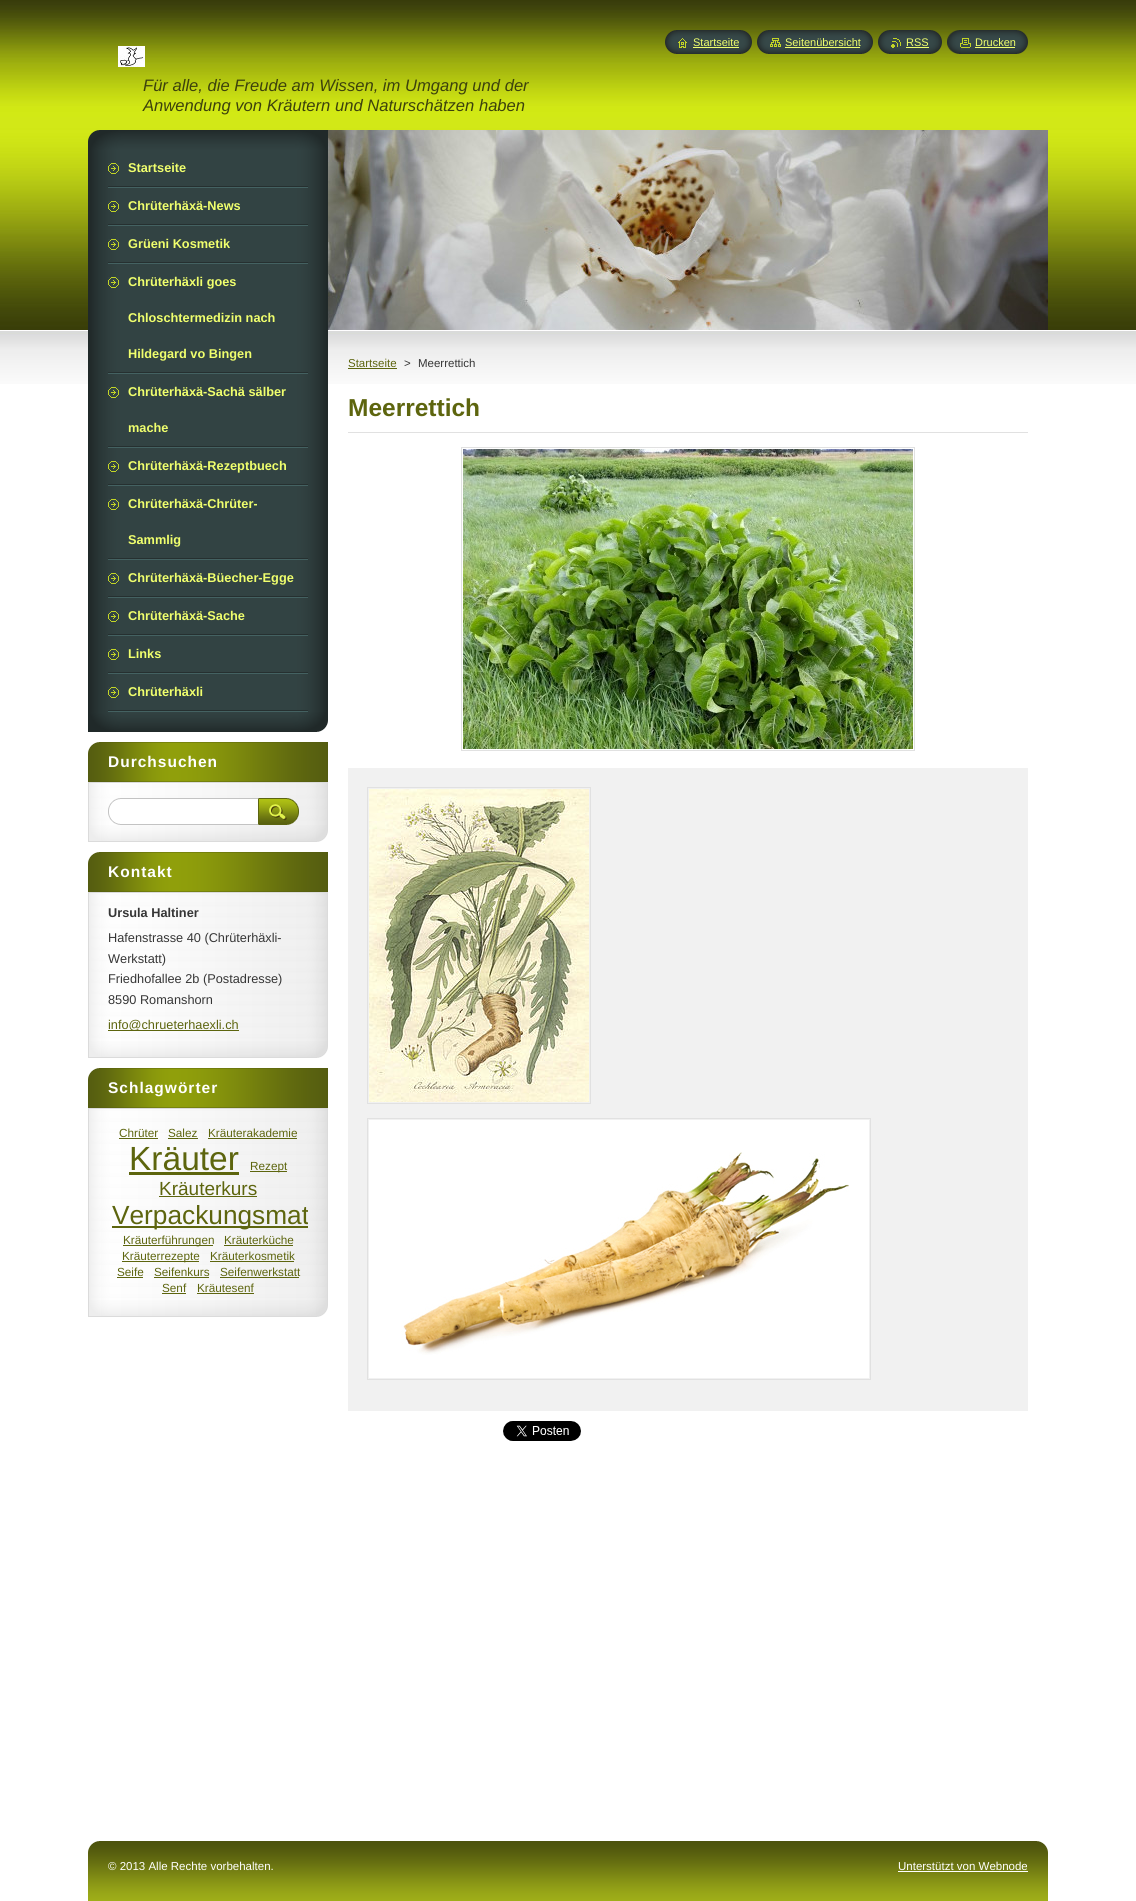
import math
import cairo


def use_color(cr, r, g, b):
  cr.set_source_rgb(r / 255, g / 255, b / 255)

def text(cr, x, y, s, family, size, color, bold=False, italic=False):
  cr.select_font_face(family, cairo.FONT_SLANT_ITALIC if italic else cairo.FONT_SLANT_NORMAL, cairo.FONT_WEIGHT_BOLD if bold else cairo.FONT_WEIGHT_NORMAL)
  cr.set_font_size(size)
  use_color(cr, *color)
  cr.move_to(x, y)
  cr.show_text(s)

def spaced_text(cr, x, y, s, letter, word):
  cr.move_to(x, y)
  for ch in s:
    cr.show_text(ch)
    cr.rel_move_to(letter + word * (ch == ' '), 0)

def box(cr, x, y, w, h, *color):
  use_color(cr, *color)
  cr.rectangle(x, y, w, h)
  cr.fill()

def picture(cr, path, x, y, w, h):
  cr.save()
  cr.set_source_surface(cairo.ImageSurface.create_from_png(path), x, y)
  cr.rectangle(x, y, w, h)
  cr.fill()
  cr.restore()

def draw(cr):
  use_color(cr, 255, 255, 255)
  cr.paint()
  picture(cr, "img_01.png", 0, 0, 1136, 384)
  picture(cr, "img_02.png", 665, 30, 13, 24)
  picture(cr, "img_03.png", 678, 30, 74, 24)
  picture(cr, "img_04.png", 678, 38, 9, 10)
  box(cr, 693, 47, 46, 1, 240, 255, 109)
  picture(cr, "img_02.png", 757, 30, 13, 24)
  picture(cr, "img_05.png", 770, 30, 103, 24)
  picture(cr, "img_06.png", 770, 38, 11, 9)
  box(cr, 785, 47, 75, 1, 240, 255, 109)
  picture(cr, "img_02.png", 878, 30, 13, 24)
  picture(cr, "img_07.png", 891, 30, 51, 24)
  picture(cr, "img_08.png", 891, 38, 10, 10)
  box(cr, 906, 47, 23, 1, 240, 255, 109)
  picture(cr, "img_09.png", 947, 30, 14, 24)
  picture(cr, "img_10.png", 961, 30, 67, 24)
  picture(cr, "img_11.png", 960, 38, 11, 10)
  box(cr, 975, 47, 40, 1, 240, 255, 109)
  picture(cr, "img_12.png", 118, 46, 27, 21)
  picture(cr, "img_13.png", 88, 130, 240, 20)
  picture(cr, "img_14.png", 88, 712, 240, 20)
  picture(cr, "img_15.png", 88, 150, 240, 562)
  picture(cr, "img_16.png", 108, 186, 200, 2)
  picture(cr, "img_17.png", 108, 163, 11, 11)
  picture(cr, "img_16.png", 108, 224, 200, 2)
  picture(cr, "img_17.png", 108, 201, 11, 11)
  picture(cr, "img_16.png", 108, 262, 200, 2)
  picture(cr, "img_17.png", 108, 239, 11, 11)
  picture(cr, "img_16.png", 108, 372, 200, 2)
  picture(cr, "img_17.png", 108, 277, 11, 11)
  picture(cr, "img_16.png", 108, 446, 200, 2)
  picture(cr, "img_17.png", 108, 387, 11, 11)
  picture(cr, "img_16.png", 108, 484, 200, 2)
  picture(cr, "img_17.png", 108, 461, 11, 11)
  picture(cr, "img_16.png", 108, 558, 200, 2)
  picture(cr, "img_17.png", 108, 499, 11, 11)
  picture(cr, "img_16.png", 108, 596, 200, 2)
  picture(cr, "img_17.png", 108, 573, 11, 11)
  picture(cr, "img_16.png", 108, 634, 200, 2)
  picture(cr, "img_17.png", 108, 611, 11, 11)
  picture(cr, "img_16.png", 108, 672, 200, 2)
  picture(cr, "img_17.png", 108, 649, 11, 11)
  picture(cr, "img_16.png", 108, 710, 200, 2)
  picture(cr, "img_17.png", 108, 687, 11, 11)
  picture(cr, "img_18.png", 88, 825, 240, 17)
  picture(cr, "img_19.png", 88, 742, 240, 40)
  picture(cr, "img_20.png", 88, 783, 240, 42)
  box(cr, 88, 782, 240, 1, 219, 219, 219)
  picture(cr, "img_21.png", 108, 798, 150, 27)
  picture(cr, "img_22.png", 258, 798, 41, 27)
  picture(cr, "img_18.png", 88, 1041, 240, 17)
  picture(cr, "img_19.png", 88, 852, 240, 40)
  picture(cr, "img_23.png", 88, 893, 240, 148)
  box(cr, 88, 892, 240, 1, 219, 219, 219)
  box(cr, 108, 1030, 51, 1, 93, 101, 14)
  box(cr, 159, 1030, 80, 1, 93, 101, 14)
  picture(cr, "img_18.png", 88, 1300, 240, 17)
  picture(cr, "img_19.png", 88, 1068, 240, 40)
  picture(cr, "img_24.png", 88, 1109, 240, 191)
  box(cr, 88, 1108, 240, 1, 219, 219, 219)
  box(cr, 119, 1138, 39, 1, 93, 101, 14)
  box(cr, 168, 1138, 30, 1, 93, 101, 14)
  box(cr, 208, 1138, 89, 1, 93, 101, 14)
  box(cr, 129, 1172, 110, 3, 93, 101, 14)
  box(cr, 250, 1171, 37, 1, 93, 101, 14)
  box(cr, 159, 1196, 98, 1, 93, 101, 14)
  box(cr, 112, 1226, 196, 2, 93, 101, 14)
  box(cr, 123, 1245, 90, 1, 93, 101, 14)
  box(cr, 224, 1245, 69, 1, 93, 101, 14)
  box(cr, 122, 1261, 77, 1, 93, 101, 14)
  box(cr, 210, 1261, 84, 1, 93, 101, 14)
  box(cr, 117, 1277, 26, 1, 93, 101, 14)
  box(cr, 154, 1277, 55, 1, 93, 101, 14)
  box(cr, 220, 1277, 79, 1, 93, 101, 14)
  box(cr, 162, 1293, 24, 1, 93, 101, 14)
  box(cr, 197, 1293, 57, 1, 93, 101, 14)
  picture(cr, "img_25.png", 328, 130, 720, 200)
  box(cr, 348, 368, 49, 1, 93, 101, 14)
  box(cr, 348, 432, 680, 1, 225, 225, 225)
  cr.rectangle(461.5, 447.5, 453, 303)
  cr.set_line_width(1)
  cr.stroke()
  picture(cr, "img_26.png", 463, 449, 450, 300)
  box(cr, 348, 768, 680, 643, 241, 241, 241)
  cr.rectangle(367.5, 787.5, 223, 316)
  use_color(cr, 225, 225, 225)
  cr.stroke()
  picture(cr, "img_27.png", 369, 789, 220, 313)
  cr.rectangle(367.5, 1118.5, 503, 261)
  cr.stroke()
  picture(cr, "img_28.png", 369, 1120, 500, 258)
  picture(cr, "img_29.png", 503, 1421, 78, 20)
  picture(cr, "img_30.png", 88, 1841, 960, 60)
  box(cr, 898, 1871, 130, 1, 255, 255, 255)
  text(cr, 693, 46, "Startseite", "Liberation Sans", 11, (240, 255, 109))
  text(cr, 785, 46, "Seitenübersicht", "Liberation Sans", 11, (240, 255, 109))
  text(cr, 906, 46, "RSS", "Liberation Sans", 11, (240, 255, 109))
  text(cr, 975, 46, "Drucken", "Liberation Sans", 11, (240, 255, 109))
  text(cr, 143, 91, "Für alle, die Freude am Wissen, im Umgang und der", "Liberation Sans", 16.6, (60, 65, 12), italic=True)
  text(cr, 143, 111, "Anwendung von Kräutern und Naturschätzen haben", "Liberation Sans", 16.6, (60, 65, 12), italic=True)
  text(cr, 128, 172, "Startseite", "Liberation Sans", 12.75, (240, 255, 109), bold=True)
  text(cr, 128, 210, "Chrüterhäxä-News", "Liberation Sans", 12.75, (240, 255, 109), bold=True)
  text(cr, 128, 248, "Grüeni Kosmetik", "Liberation Sans", 12.75, (240, 255, 109), bold=True)
  text(cr, 128, 286, "Chrüterhäxli goes", "Liberation Sans", 12.75, (240, 255, 109), bold=True)
  text(cr, 128, 322, "Chloschtermedizin nach", "Liberation Sans", 12.75, (240, 255, 109), bold=True)
  text(cr, 128, 358, "Hildegard vo Bingen", "Liberation Sans", 12.75, (240, 255, 109), bold=True)
  text(cr, 128, 396, "Chrüterhäxä-Sachä sälber", "Liberation Sans", 12.75, (240, 255, 109), bold=True)
  text(cr, 128, 432, "mache", "Liberation Sans", 12.75, (240, 255, 109), bold=True)
  text(cr, 128, 470, "Chrüterhäxä-Rezeptbuech", "Liberation Sans", 12.75, (240, 255, 109), bold=True)
  text(cr, 128, 508, "Chrüterhäxä-Chrüter-", "Liberation Sans", 12.75, (240, 255, 109), bold=True)
  text(cr, 128, 544, "Sammlig", "Liberation Sans", 12.75, (240, 255, 109), bold=True)
  text(cr, 128, 582, "Chrüterhäxä-Büecher-Egge", "Liberation Sans", 12.75, (240, 255, 109), bold=True)
  text(cr, 128, 620, "Chrüterhäxä-Sache", "Liberation Sans", 12.75, (240, 255, 109), bold=True)
  text(cr, 128, 658, "Links", "Liberation Sans", 12.75, (240, 255, 109), bold=True)
  text(cr, 128, 696, "Chrüterhäxli", "Liberation Sans", 12.75, (240, 255, 109), bold=True)
  cr.set_font_size(15.5)
  use_color(cr, 255, 255, 255)
  spaced_text(cr, 108, 767, "Durchsuchen", 1, 0)
  spaced_text(cr, 108, 877, "Kontakt", 1, 0)
  text(cr, 108, 917, "Ursula Haltiner", "Liberation Sans", 12.75, (54, 54, 54), bold=True)
  text(cr, 108, 942, "Hafenstrasse 40 (Chrüterhäxli-", "Liberation Sans", 12.75, (54, 54, 54))
  text(cr, 108, 963, "Werkstatt)", "Liberation Sans", 12.75, (54, 54, 54))
  text(cr, 108, 983, "Friedhofallee 2b (Postadresse)", "Liberation Sans", 12.75, (54, 54, 54))
  text(cr, 108, 1004, "8590 Romanshorn", "Liberation Sans", 12.75, (54, 54, 54))
  text(cr, 108, 1029, "info@chrueterhaexli.ch", "Liberation Sans", 12.75, (93, 101, 14))
  cr.select_font_face("Liberation Sans", cairo.FONT_SLANT_NORMAL, cairo.FONT_WEIGHT_BOLD)
  cr.set_font_size(15.5)
  use_color(cr, 255, 255, 255)
  spaced_text(cr, 108, 1093, "Schlagwörter", 1, 0)
  text(cr, 119, 1137, "Chrüter", "Liberation Sans", 11.75, (93, 101, 14))
  text(cr, 168, 1137, "Salez", "Liberation Sans", 11.75, (93, 101, 14))
  text(cr, 208, 1137, "Kräuterakademie", "Liberation Sans", 11.75, (93, 101, 14))
  text(cr, 129, 1170, "Kräuter", "Liberation Sans", 33.5, (93, 101, 14))
  text(cr, 250, 1170, "Rezept", "Liberation Sans", 11.75, (93, 101, 14))
  text(cr, 159, 1195, "Kräuterkurs", "Liberation Sans", 19, (93, 101, 14))
  cr.save()
  cr.rectangle(108, 1109, 200, 191)
  cr.clip()
  text(cr, 112, 1224, "Verpackungsmat", "Liberation Sans", 26.25, (93, 101, 14))
  cr.restore()
  text(cr, 123, 1244, "Kräuterführungen", "Liberation Sans", 11.75, (93, 101, 14))
  text(cr, 224, 1244, "Kräuterküche", "Liberation Sans", 11.75, (93, 101, 14))
  text(cr, 122, 1260, "Kräuterrezepte", "Liberation Sans", 11.75, (93, 101, 14))
  text(cr, 210, 1260, "Kräuterkosmetik", "Liberation Sans", 11.75, (93, 101, 14))
  text(cr, 117, 1276, "Seife", "Liberation Sans", 11.75, (93, 101, 14))
  text(cr, 154, 1276, "Seifenkurs", "Liberation Sans", 11.75, (93, 101, 14))
  text(cr, 220, 1276, "Seifenwerkstatt", "Liberation Sans", 11.75, (93, 101, 14))
  text(cr, 162, 1292, "Senf", "Liberation Sans", 11.75, (93, 101, 14))
  text(cr, 197, 1292, "Kräutesenf", "Liberation Sans", 11.75, (93, 101, 14))
  text(cr, 348, 367, "Startseite", "Liberation Sans", 11.5, (93, 101, 14))
  text(cr, 404, 367, ">", "Liberation Sans", 11.5, (54, 54, 54))
  text(cr, 418, 367, "Meerrettich", "Liberation Sans", 11.5, (54, 54, 54))
  text(cr, 348, 416, "Meerrettich", "Liberation Sans", 24.5, (93, 101, 14), bold=True)
  text(cr, 108, 1870, "© 2013 Alle Rechte vorbehalten.", "Liberation Sans", 11.5, (255, 255, 255))
  text(cr, 898, 1870, "Unterstützt von Webnode", "Liberation Sans", 11.5, (255, 255, 255))


surface = cairo.ImageSurface(cairo.FORMAT_RGB24, 1136, 1901)
cr = cairo.Context(surface)
options = cairo.FontOptions()
options.set_hint_metrics(cairo.HINT_METRICS_OFF)
options.set_hint_style(cairo.HINT_STYLE_NONE)
cr.set_font_options(options)
cr.set_miter_limit(4)
draw(cr)
surface.write_to_png("out.png")
